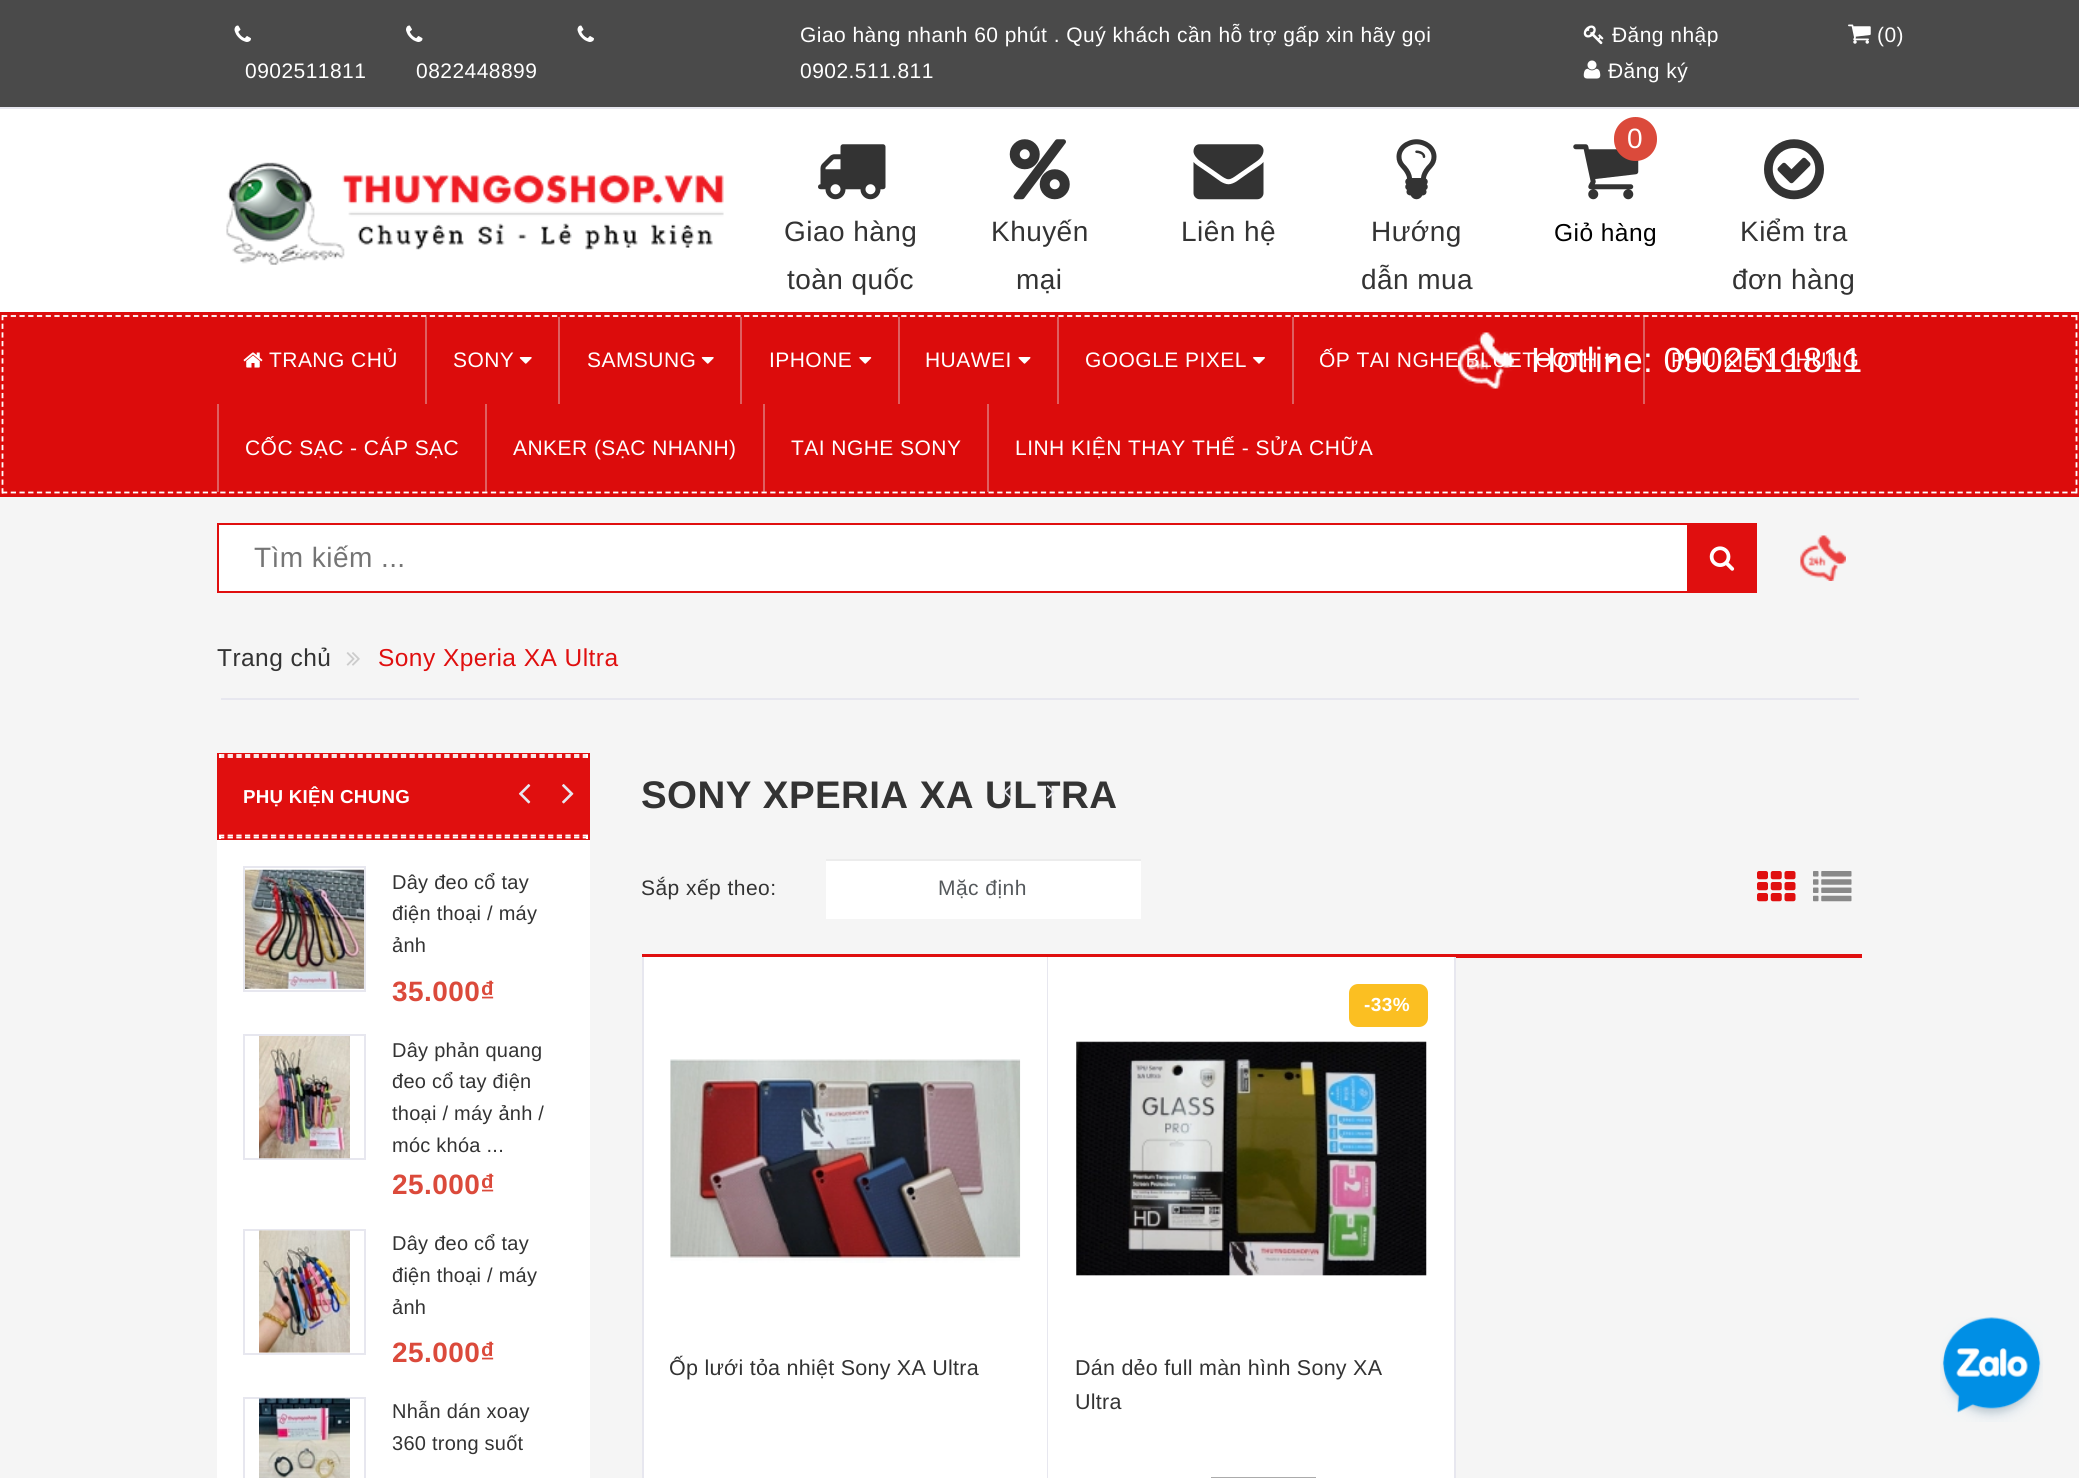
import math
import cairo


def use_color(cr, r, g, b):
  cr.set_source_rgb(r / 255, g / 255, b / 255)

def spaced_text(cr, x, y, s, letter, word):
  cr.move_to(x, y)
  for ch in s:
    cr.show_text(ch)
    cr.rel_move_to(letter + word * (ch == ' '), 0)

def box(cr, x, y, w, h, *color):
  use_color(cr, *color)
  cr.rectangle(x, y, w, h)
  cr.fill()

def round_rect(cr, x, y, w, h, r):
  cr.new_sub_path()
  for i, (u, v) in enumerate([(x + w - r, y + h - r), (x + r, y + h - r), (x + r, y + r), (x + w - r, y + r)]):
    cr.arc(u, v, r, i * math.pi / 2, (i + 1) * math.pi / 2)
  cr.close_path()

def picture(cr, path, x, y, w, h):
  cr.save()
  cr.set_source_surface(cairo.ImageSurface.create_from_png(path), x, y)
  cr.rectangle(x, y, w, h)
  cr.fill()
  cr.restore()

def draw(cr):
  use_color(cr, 245, 245, 245)
  cr.paint()
  box(cr, 0, 0, 2079, 107, 74, 74, 74)
  box(cr, 0, 107, 2079, 2, 231, 231, 239)
  picture(cr, "img_01.png", 577, 25, 17, 17)
  picture(cr, "img_02.png", 234, 25, 17, 17)
  picture(cr, "img_03.png", 406, 25, 17, 17)
  picture(cr, "img_04.png", 1583, 25, 21, 20)
  picture(cr, "img_05.png", 1583, 60, 18, 19)
  picture(cr, "img_06.png", 1848, 24, 23, 20)
  box(cr, 0, 109, 2079, 203, 255, 255, 255)
  picture(cr, "img_07.png", 226, 162, 498, 103)
  picture(cr, "img_08.png", 1573, 144, 66, 56)
  use_color(cr, 219, 74, 59)
  round_rect(cr, 1614, 117, 43, 44, 21.5)
  cr.fill()
  picture(cr, "img_09.png", 818, 144, 68, 56)
  picture(cr, "img_10.png", 1009, 139, 61, 61)
  picture(cr, "img_11.png", 1193, 144, 71, 56)
  picture(cr, "img_12.png", 1396, 139, 41, 61)
  picture(cr, "img_13.png", 1764, 139, 60, 61)
  box(cr, 0, 312, 2079, 185, 220, 12, 12)
  cr.new_path()
  cr.move_to(2, 316)
  cr.line_to(2077, 316)
  use_color(cr, 255, 255, 255)
  cr.set_line_width(1.8)
  cr.set_dash([5.25, 3.48])
  cr.stroke()
  cr.new_path()
  cr.move_to(2076.5, 315)
  cr.line_to(2076.5, 493.5)
  cr.set_dash([5.25, 3.41])
  cr.stroke()
  cr.new_path()
  cr.move_to(2, 492.5)
  cr.line_to(2077, 492.5)
  cr.set_dash([5.25, 3.48])
  cr.stroke()
  cr.new_path()
  cr.move_to(2.5, 315)
  cr.line_to(2.5, 493.5)
  cr.set_dash([5.25, 3.41])
  cr.stroke()
  picture(cr, "img_14.png", 243, 352, 20, 16)
  box(cr, 1292, 317, 2, 87, 222, 96, 97)
  picture(cr, "img_15.png", 1604, 357, 13, 7)
  box(cr, 425, 317, 2, 87, 222, 96, 97)
  picture(cr, "img_15.png", 519, 357, 13, 7)
  box(cr, 558, 317, 2, 87, 222, 96, 97)
  picture(cr, "img_15.png", 701, 357, 13, 7)
  box(cr, 740, 317, 2, 87, 222, 96, 97)
  picture(cr, "img_17.png", 859, 357, 13, 7)
  box(cr, 898, 317, 2, 87, 222, 96, 97)
  picture(cr, "img_18.png", 1018, 357, 13, 7)
  box(cr, 1057, 317, 2, 87, 222, 96, 97)
  picture(cr, "img_19.png", 1253, 357, 12, 7)
  box(cr, 1643, 317, 2, 87, 222, 96, 97)
  box(cr, 217, 404, 2, 88, 222, 96, 97)
  cr.set_source_rgba(0.886, 0.894, 0.902, 0.39)
  cr.rectangle(485, 404, 2, 88)
  cr.fill()
  cr.rectangle(763, 404, 2, 88)
  cr.fill()
  cr.rectangle(987, 404, 2, 88)
  cr.fill()
  box(cr, 219, 525, 1468, 66, 255, 255, 255)
  cr.rectangle(218, 524, 1538, 68)
  use_color(cr, 224, 15, 15)
  cr.set_line_width(2)
  cr.set_dash([])
  cr.stroke()
  box(cr, 1687, 525, 68, 66, 224, 15, 15)
  picture(cr, "img_20.png", 1709, 546, 26, 25)
  picture(cr, "img_21.png", 1800, 535, 46, 46)
  box(cr, 221, 698, 1638, 2, 231, 231, 239)
  picture(cr, "img_22.png", 346, 652, 14, 14)
  box(cr, 217, 753, 373, 87, 224, 15, 15)
  cr.new_path()
  cr.move_to(219, 755)
  cr.line_to(588, 755)
  use_color(cr, 255, 255, 255)
  cr.set_line_width(1.8)
  cr.set_dash([5.25, 3.41])
  cr.stroke()
  box(cr, 586, 754, 2, 4, 255, 255, 255)
  cr.new_path()
  cr.move_to(219, 757)
  cr.line_to(588, 757)
  cr.stroke()
  box(cr, 219, 754, 2, 4, 255, 255, 255)
  cr.new_path()
  cr.move_to(219, 835.5)
  cr.line_to(588, 835.5)
  cr.stroke()
  box(cr, 586, 835, 2, 4, 255, 255, 255)
  cr.new_path()
  cr.move_to(219, 837.5)
  cr.line_to(588, 837.5)
  cr.stroke()
  box(cr, 219, 835, 2, 4, 255, 255, 255)
  box(cr, 217, 840, 373, 638, 255, 255, 255)
  picture(cr, "img_23.png", 518, 784, 13, 20)
  picture(cr, "img_25.png", 562, 784, 12, 20)
  cr.rectangle(244, 867, 121, 124)
  use_color(cr, 231, 231, 239)
  cr.set_line_width(2)
  cr.set_dash([])
  cr.stroke()
  picture(cr, "img_27.png", 245, 869, 119, 120)
  cr.rectangle(244, 1035, 121, 124)
  cr.stroke()
  picture(cr, "img_28.png", 259, 1036, 91, 123)
  cr.rectangle(244, 1230, 121, 124)
  cr.stroke()
  picture(cr, "img_29.png", 259, 1230, 91, 123)
  cr.rectangle(244, 1398, 121, 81)
  cr.stroke()
  picture(cr, "img_30.png", 259, 1398, 91, 80)
  box(cr, 826, 861, 315, 58, 255, 255, 255)
  box(cr, 826, 859, 315, 2, 236, 236, 236)
  picture(cr, "img_31.png", 1757, 871, 39, 31)
  picture(cr, "img_32.png", 1813, 871, 39, 31)
  box(cr, 642, 954, 1220, 4, 224, 15, 15)
  box(cr, 644, 957, 403, 521, 255, 255, 255)
  box(cr, 1047, 957, 1, 521, 231, 231, 239)
  box(cr, 642, 957, 2, 521, 231, 231, 239)
  picture(cr, "img_33.png", 670, 1059, 351, 204)
  box(cr, 1048, 957, 406, 521, 255, 255, 255)
  box(cr, 1454, 957, 2, 521, 231, 231, 239)
  use_color(cr, 251, 191, 34)
  round_rect(cr, 1349, 984, 79, 43, 9)
  cr.fill()
  picture(cr, "img_34.png", 1076, 1041, 351, 235)
  box(cr, 1211, 1477, 105, 1, 171, 171, 171)
  picture(cr, "img_35.png", 1940, 1317, 103, 105)
  cr.select_font_face("Liberation Sans")
  cr.set_font_size(21)
  use_color(cr, 255, 255, 255)
  spaced_text(cr, 245, 78, "0902511811", 0.45, 0)
  spaced_text(cr, 416, 78, "0822448899", 0.45, 0)
  spaced_text(cr, 800, 42, "Giao hàng nhanh 60 phút . Quý khách cần hỗ trợ gấp xin hãy gọi", 0.45, 0)
  spaced_text(cr, 800, 78, "0902.511.811", 0.45, 0)
  spaced_text(cr, 1612, 42, "Đăng nhập", 0.45, 0)
  spaced_text(cr, 1608, 78, "Đăng ký", 0.45, 0)
  spaced_text(cr, 1877, 42, "(0)", 0.45, 0)
  cr.set_font_size(28)
  spaced_text(cr, 1627, 148, "0", 0.45, 0)
  cr.set_font_size(24.5)
  use_color(cr, 0, 0, 0)
  spaced_text(cr, 1554, 241, "Giỏ hàng", 0.45, 0)
  cr.set_font_size(28)
  use_color(cr, 51, 51, 51)
  spaced_text(cr, 784, 241, "Giao hàng", 0.45, 0)
  spaced_text(cr, 787, 289, "toàn quốc", 0.45, 0)
  spaced_text(cr, 991, 241, "Khuyến", 0.45, 0)
  spaced_text(cr, 1016, 289, "mại", 0.45, 0)
  spaced_text(cr, 1181, 241, "Liên hệ", 0.45, 0)
  spaced_text(cr, 1371, 241, "Hướng", 0.45, 0)
  spaced_text(cr, 1361, 289, "dẫn mua", 0.45, 0)
  spaced_text(cr, 1740, 241, "Kiểm tra", 0.45, 0)
  spaced_text(cr, 1732, 289, "đơn hàng", 0.45, 0)
  cr.set_font_size(21)
  use_color(cr, 255, 255, 255)
  spaced_text(cr, 269, 367, "TRANG CHỦ", 0.45, 0)
  spaced_text(cr, 1319, 367, "ỐP TAI NGHE BLUETOOTH", 0.45, 0)
  picture(cr, "img_16.png", 1457, 332, 57, 57)
  spaced_text(cr, 453, 367, "SONY", 0.45, 0)
  spaced_text(cr, 587, 367, "SAMSUNG", 0.45, 0)
  spaced_text(cr, 769, 367, "IPHONE", 0.45, 0)
  spaced_text(cr, 925, 367, "HUAWEI", 0.45, 0)
  spaced_text(cr, 1085, 367, "GOOGLE PIXEL", 0.45, 0)
  spaced_text(cr, 1671, 367, "PHỤ KIỆN CHUNG", 0.45, 0)
  cr.set_font_size(35)
  spaced_text(cr, 1531, 372, "Hotline: 0902511811", 0.45, 0)
  cr.set_font_size(21)
  spaced_text(cr, 245, 455, "CỐC SẠC - CÁP SẠC", 0.45, 0)
  spaced_text(cr, 513, 455, "ANKER (SẠC NHANH)", 0.45, 0)
  spaced_text(cr, 791, 455, "TAI NGHE SONY", 0.45, 0)
  spaced_text(cr, 1015, 455, "LINH KIỆN THAY THẾ - SỬA CHỮA", 0.45, 0)
  cr.set_font_size(28)
  use_color(cr, 117, 117, 117)
  spaced_text(cr, 254, 567, "Tìm kiếm ...", 0.45, 0)
  cr.set_font_size(24.5)
  use_color(cr, 51, 51, 51)
  spaced_text(cr, 217, 666, "Trang chủ", 0.45, 0)
  use_color(cr, 224, 15, 15)
  spaced_text(cr, 378, 666, "Sony Xperia XA Ultra", 0.45, 0)
  cr.select_font_face("Liberation Sans", cairo.FONT_SLANT_NORMAL, cairo.FONT_WEIGHT_BOLD)
  cr.set_font_size(18.75)
  use_color(cr, 255, 255, 255)
  spaced_text(cr, 243, 803, "PHỤ KIỆN CHUNG", 0.25, 0)
  cr.select_font_face("Liberation Sans")
  cr.set_font_size(20)
  use_color(cr, 51, 51, 51)
  spaced_text(cr, 392, 889, "Dây đeo cổ tay", 0.25, 0)
  spaced_text(cr, 392, 920, "điện thoại / máy", 0.25, 0)
  spaced_text(cr, 392, 952, "ảnh", 0.25, 0)
  cr.select_font_face("Liberation Sans", cairo.FONT_SLANT_NORMAL, cairo.FONT_WEIGHT_BOLD)
  cr.set_font_size(28)
  use_color(cr, 219, 74, 59)
  spaced_text(cr, 392, 1001, "35.000₫", 0.45, 0)
  cr.select_font_face("Liberation Sans")
  cr.set_font_size(20)
  use_color(cr, 51, 51, 51)
  spaced_text(cr, 392, 1057, "Dây phản quang", 0.25, 0)
  spaced_text(cr, 392, 1088, "đeo cổ tay điện", 0.25, 0)
  spaced_text(cr, 392, 1120, "thoại / máy ảnh /", 0.25, 0)
  spaced_text(cr, 392, 1152, "móc khóa ...", 0.25, 0)
  cr.select_font_face("Liberation Sans", cairo.FONT_SLANT_NORMAL, cairo.FONT_WEIGHT_BOLD)
  cr.set_font_size(28)
  use_color(cr, 219, 74, 59)
  spaced_text(cr, 392, 1194, "25.000₫", 0.45, 0)
  cr.select_font_face("Liberation Sans")
  cr.set_font_size(20)
  use_color(cr, 51, 51, 51)
  spaced_text(cr, 392, 1250, "Dây đeo cổ tay", 0.25, 0)
  spaced_text(cr, 392, 1282, "điện thoại / máy", 0.25, 0)
  spaced_text(cr, 392, 1314, "ảnh", 0.25, 0)
  cr.select_font_face("Liberation Sans", cairo.FONT_SLANT_NORMAL, cairo.FONT_WEIGHT_BOLD)
  cr.set_font_size(28)
  use_color(cr, 219, 74, 59)
  spaced_text(cr, 392, 1362, "25.000₫", 0.45, 0)
  cr.select_font_face("Liberation Sans")
  cr.set_font_size(20)
  use_color(cr, 51, 51, 51)
  spaced_text(cr, 392, 1418, "Nhẫn dán xoay", 0.25, 0)
  spaced_text(cr, 392, 1450, "360 trong suốt", 0.25, 0)
  cr.select_font_face("Liberation Sans", cairo.FONT_SLANT_NORMAL, cairo.FONT_WEIGHT_BOLD)
  cr.set_font_size(38.5)
  spaced_text(cr, 641, 808, "SONY XPERIA XA ULTRA", 0.4, 0)
  picture(cr, "img_26.png", 1046, 785, 9, 14)
  picture(cr, "img_24.png", 1003, 785, 8, 14)
  cr.select_font_face("Liberation Sans")
  cr.set_font_size(21)
  spaced_text(cr, 641, 895, "Sắp xếp theo:", 0.45, 0)
  use_color(cr, 85, 89, 92)
  spaced_text(cr, 938, 895, "Mặc định", 0.45, 0)
  cr.set_font_size(21.5)
  use_color(cr, 51, 51, 51)
  spaced_text(cr, 669, 1375, "Ốp lưới tỏa nhiệt Sony XA Ultra", 0.25, 0)
  cr.select_font_face("Liberation Sans", cairo.FONT_SLANT_NORMAL, cairo.FONT_WEIGHT_BOLD)
  cr.set_font_size(19)
  use_color(cr, 255, 255, 255)
  spaced_text(cr, 1364, 1011, "-33%", 0.45, 0)
  cr.select_font_face("Liberation Sans")
  cr.set_font_size(21.5)
  use_color(cr, 51, 51, 51)
  spaced_text(cr, 1075, 1375, "Dán dẻo full màn hình Sony XA", 0.25, 0)
  spaced_text(cr, 1075, 1409, "Ultra", 0.25, 0)


surface = cairo.ImageSurface(cairo.FORMAT_RGB24, 2079, 1478)
cr = cairo.Context(surface)
options = cairo.FontOptions()
options.set_hint_metrics(cairo.HINT_METRICS_OFF)
options.set_hint_style(cairo.HINT_STYLE_NONE)
cr.set_font_options(options)
cr.set_miter_limit(4)
draw(cr)
surface.write_to_png("out.png")
